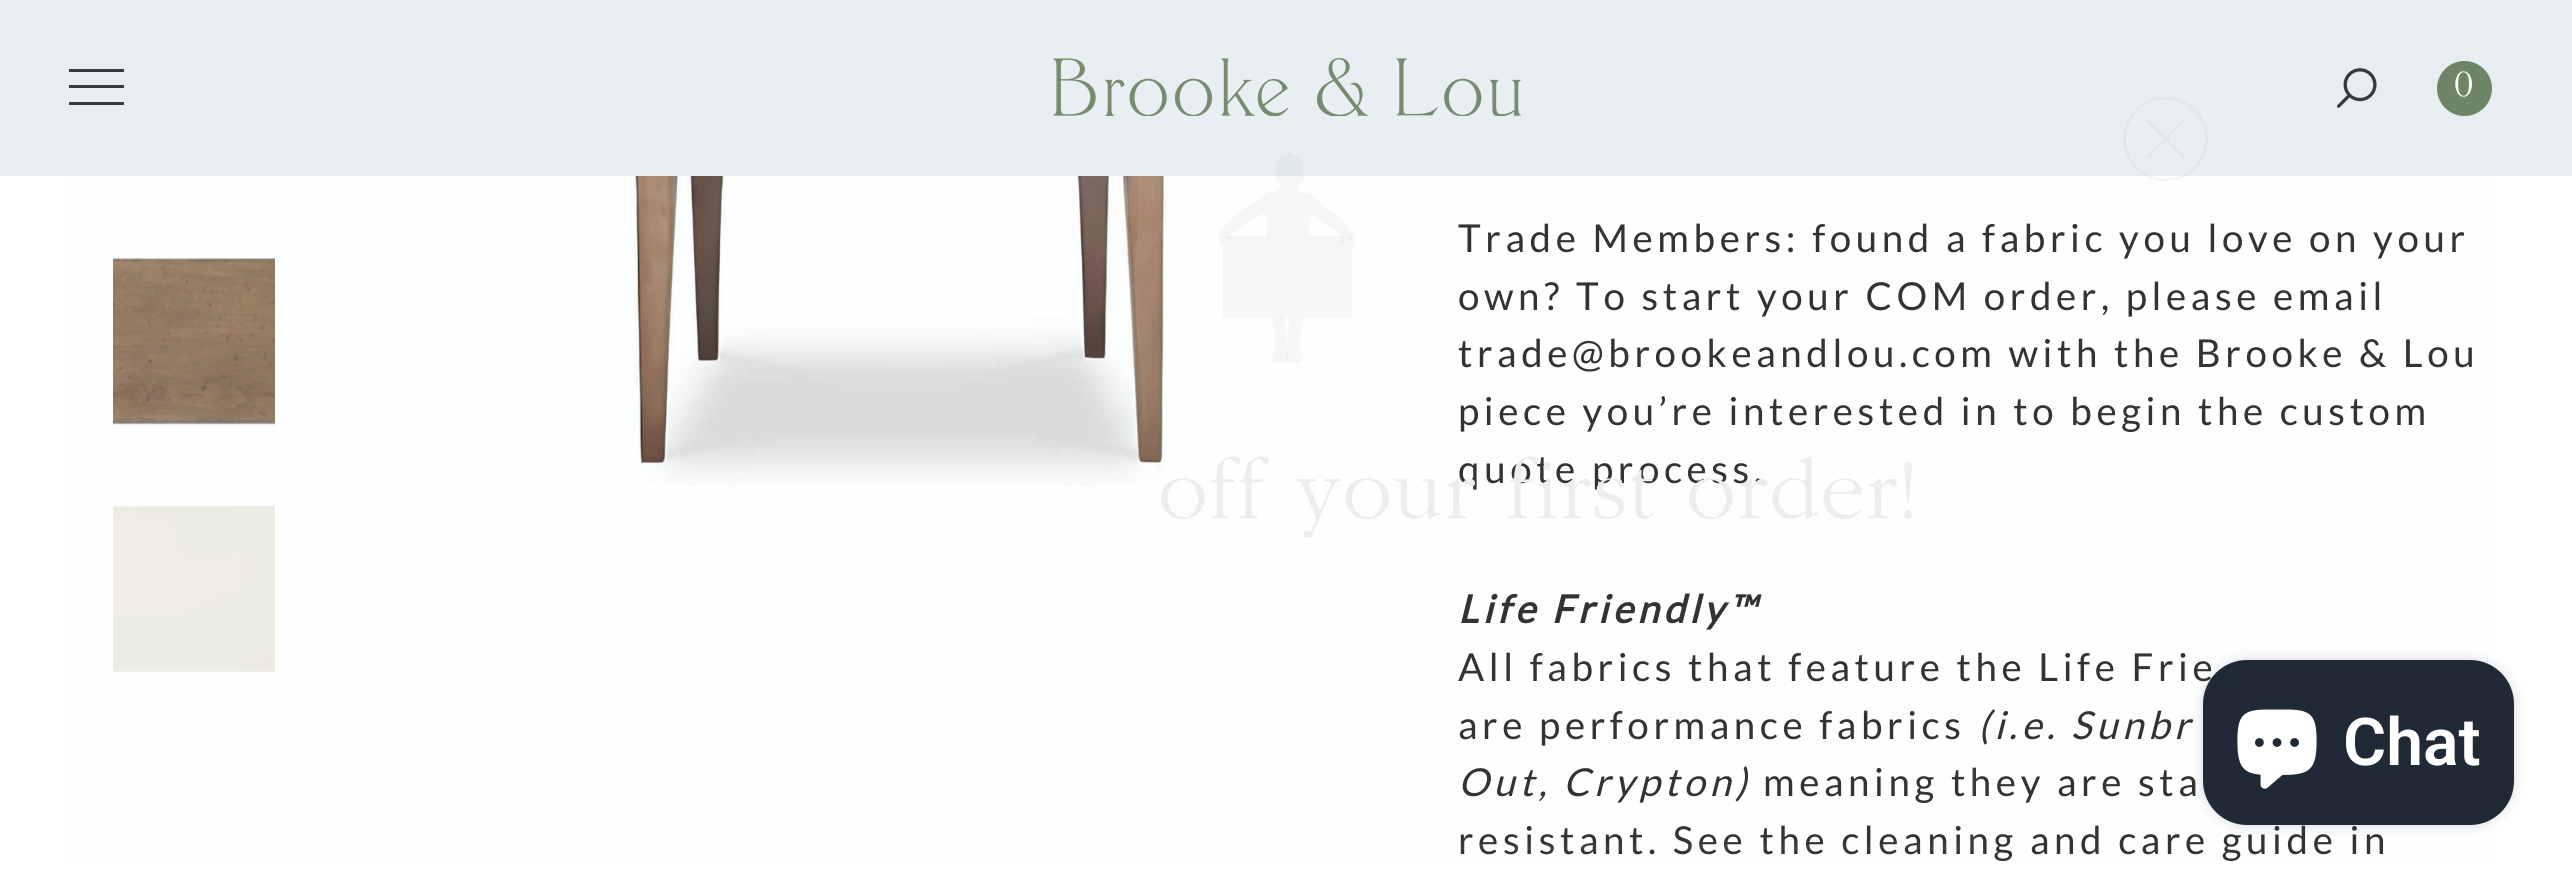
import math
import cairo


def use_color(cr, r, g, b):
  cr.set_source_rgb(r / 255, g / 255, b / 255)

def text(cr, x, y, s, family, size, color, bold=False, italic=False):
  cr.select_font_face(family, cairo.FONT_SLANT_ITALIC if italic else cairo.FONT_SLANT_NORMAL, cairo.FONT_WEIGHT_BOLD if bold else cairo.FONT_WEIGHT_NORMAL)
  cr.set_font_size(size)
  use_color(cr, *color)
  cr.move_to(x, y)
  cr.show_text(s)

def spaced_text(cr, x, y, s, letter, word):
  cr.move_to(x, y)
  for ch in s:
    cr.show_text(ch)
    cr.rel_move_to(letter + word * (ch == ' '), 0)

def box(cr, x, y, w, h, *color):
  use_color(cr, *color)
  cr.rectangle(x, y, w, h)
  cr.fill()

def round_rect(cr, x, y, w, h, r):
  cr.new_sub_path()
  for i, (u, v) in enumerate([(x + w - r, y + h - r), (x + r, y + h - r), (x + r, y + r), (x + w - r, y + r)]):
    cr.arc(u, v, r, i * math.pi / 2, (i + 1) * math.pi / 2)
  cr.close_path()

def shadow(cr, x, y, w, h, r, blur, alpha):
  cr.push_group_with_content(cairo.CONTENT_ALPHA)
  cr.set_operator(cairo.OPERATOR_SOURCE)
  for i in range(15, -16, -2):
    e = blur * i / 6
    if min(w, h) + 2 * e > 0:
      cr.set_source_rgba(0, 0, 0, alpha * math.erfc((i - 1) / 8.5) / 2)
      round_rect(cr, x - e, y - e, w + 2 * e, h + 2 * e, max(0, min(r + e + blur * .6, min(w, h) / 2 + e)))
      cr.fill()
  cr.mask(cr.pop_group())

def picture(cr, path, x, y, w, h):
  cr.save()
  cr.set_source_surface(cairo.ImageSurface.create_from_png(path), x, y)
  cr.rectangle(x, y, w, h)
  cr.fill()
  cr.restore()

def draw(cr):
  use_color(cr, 255, 255, 255)
  cr.paint()
  box(cr, 0, 0, 2572, 176, 233, 237, 241)
  box(cr, 69, 69, 55, 3, 51, 51, 51)
  box(cr, 69, 85, 55, 3, 51, 51, 51)
  box(cr, 69, 102, 55, 3, 51, 51, 51)
  picture(cr, "img_01.png", 1053, 58, 468, 58)
  picture(cr, "img_02.png", 2337, 68, 40, 40)
  use_color(cr, 105, 129, 96)
  cr.arc(2464.5, 88.5, 27.5, 0, 2 * math.pi)
  cr.fill()
  picture(cr, "img_03.png", 113, 258, 162, 167)
  picture(cr, "img_04.png", 113, 505, 162, 167)
  picture(cr, "img_05.png", 624, 176, 551, 310)
  cr.set_source_rgba(0.82, 0.91, 1, 0.04)
  cr.rectangle(69, 58, 2423, 803)
  cr.fill()
  cr.set_source_rgba(1, 1, 1, 0.06)
  cr.rectangle(635, 58, 1615, 803)
  cr.fill()
  cr.arc(2165.5, 139, 41, 0, 2 * math.pi)
  cr.set_source_rgba(0.412, 0.506, 0.376, 0.06)
  cr.set_line_width(2.7)
  cr.stroke()
  cr.new_path()
  cr.move_to(2147.5, 120.5)
  cr.line_to(2165.5, 139)
  cr.line_to(2147.5, 157.5)
  cr.move_to(2184, 157.5)
  cr.line_to(2165.5, 139)
  cr.line_to(2184, 120.5)
  use_color(cr, 225, 231, 233)
  cr.stroke()
  picture(cr, "img_06.png", 1219, 152, 136, 211)
  use_color(cr, 0, 0, 0)
  shadow(cr, 2203, 660, 311, 165, 44, 7, 0.15)
  cr.select_font_face("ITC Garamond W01 Light")
  cr.set_font_size(38.5)
  use_color(cr, 255, 255, 255)
  spaced_text(cr, 2454, 96, "0", 2, 0)
  cr.select_font_face("Lato")
  use_color(cr, 51, 51, 51)
  spaced_text(cr, 1458, 252, "Trade Members: found a fabric you love on your", 4.6, 0)
  spaced_text(cr, 1458, 310, "own? To start your COM order, please email", 4.6, 0)
  spaced_text(cr, 1458, 367, "trade@brookeandlou.com with the Brooke & Lou", 4.6, 0)
  spaced_text(cr, 1458, 425, "piece you’re interested in to begin the custom", 4.6, 0)
  spaced_text(cr, 1458, 483, "quote process.", 4.6, 0)
  cr.select_font_face("Lato", cairo.FONT_SLANT_ITALIC, cairo.FONT_WEIGHT_BOLD)
  spaced_text(cr, 1458, 623, "Life Friendly™", 4.6, 0)
  cr.select_font_face("Lato")
  spaced_text(cr, 1458, 681, "All fabrics that feature the Life Frie", 4.6, 0)
  spaced_text(cr, 1458, 739, "are performance fabrics", 4.6, 0)
  cr.select_font_face("Lato", cairo.FONT_SLANT_ITALIC)
  spaced_text(cr, 1978, 739, "(i.e. Sunbr", 4.6, 0)
  spaced_text(cr, 1458, 796, "Out, Crypton)", 4.6, 0)
  cr.select_font_face("Lato")
  spaced_text(cr, 1763, 796, "meaning they are sta", 4.6, 0)
  spaced_text(cr, 1458, 854, "resistant. See the cleaning and care guide in", 4.6, 0)
  cr.select_font_face("ITC Garamond W01 Light")
  cr.set_font_size(88)
  use_color(cr, 236, 237, 238)
  spaced_text(cr, 1158, 518, "off your first order!", 2, 0)
  cr.rectangle(603, 710, 1369, 137)
  cr.set_source_rgba(0.914, 0.929, 0.945, 0.06)
  cr.set_line_width(6)
  cr.stroke()
  use_color(cr, 32, 42, 54)
  round_rect(cr, 2203, 660, 311, 165, 44)
  cr.fill()
  picture(cr, "img_07.png", 2237, 709, 80, 80)
  text(cr, 2343, 765, "Chat", "Roboto SemiBold", 66, (255, 255, 255))


surface = cairo.ImageSurface(cairo.FORMAT_RGB24, 2572, 882)
cr = cairo.Context(surface)
options = cairo.FontOptions()
options.set_hint_metrics(cairo.HINT_METRICS_OFF)
options.set_hint_style(cairo.HINT_STYLE_NONE)
cr.set_font_options(options)
cr.set_miter_limit(4)
draw(cr)
surface.write_to_png("out.png")
